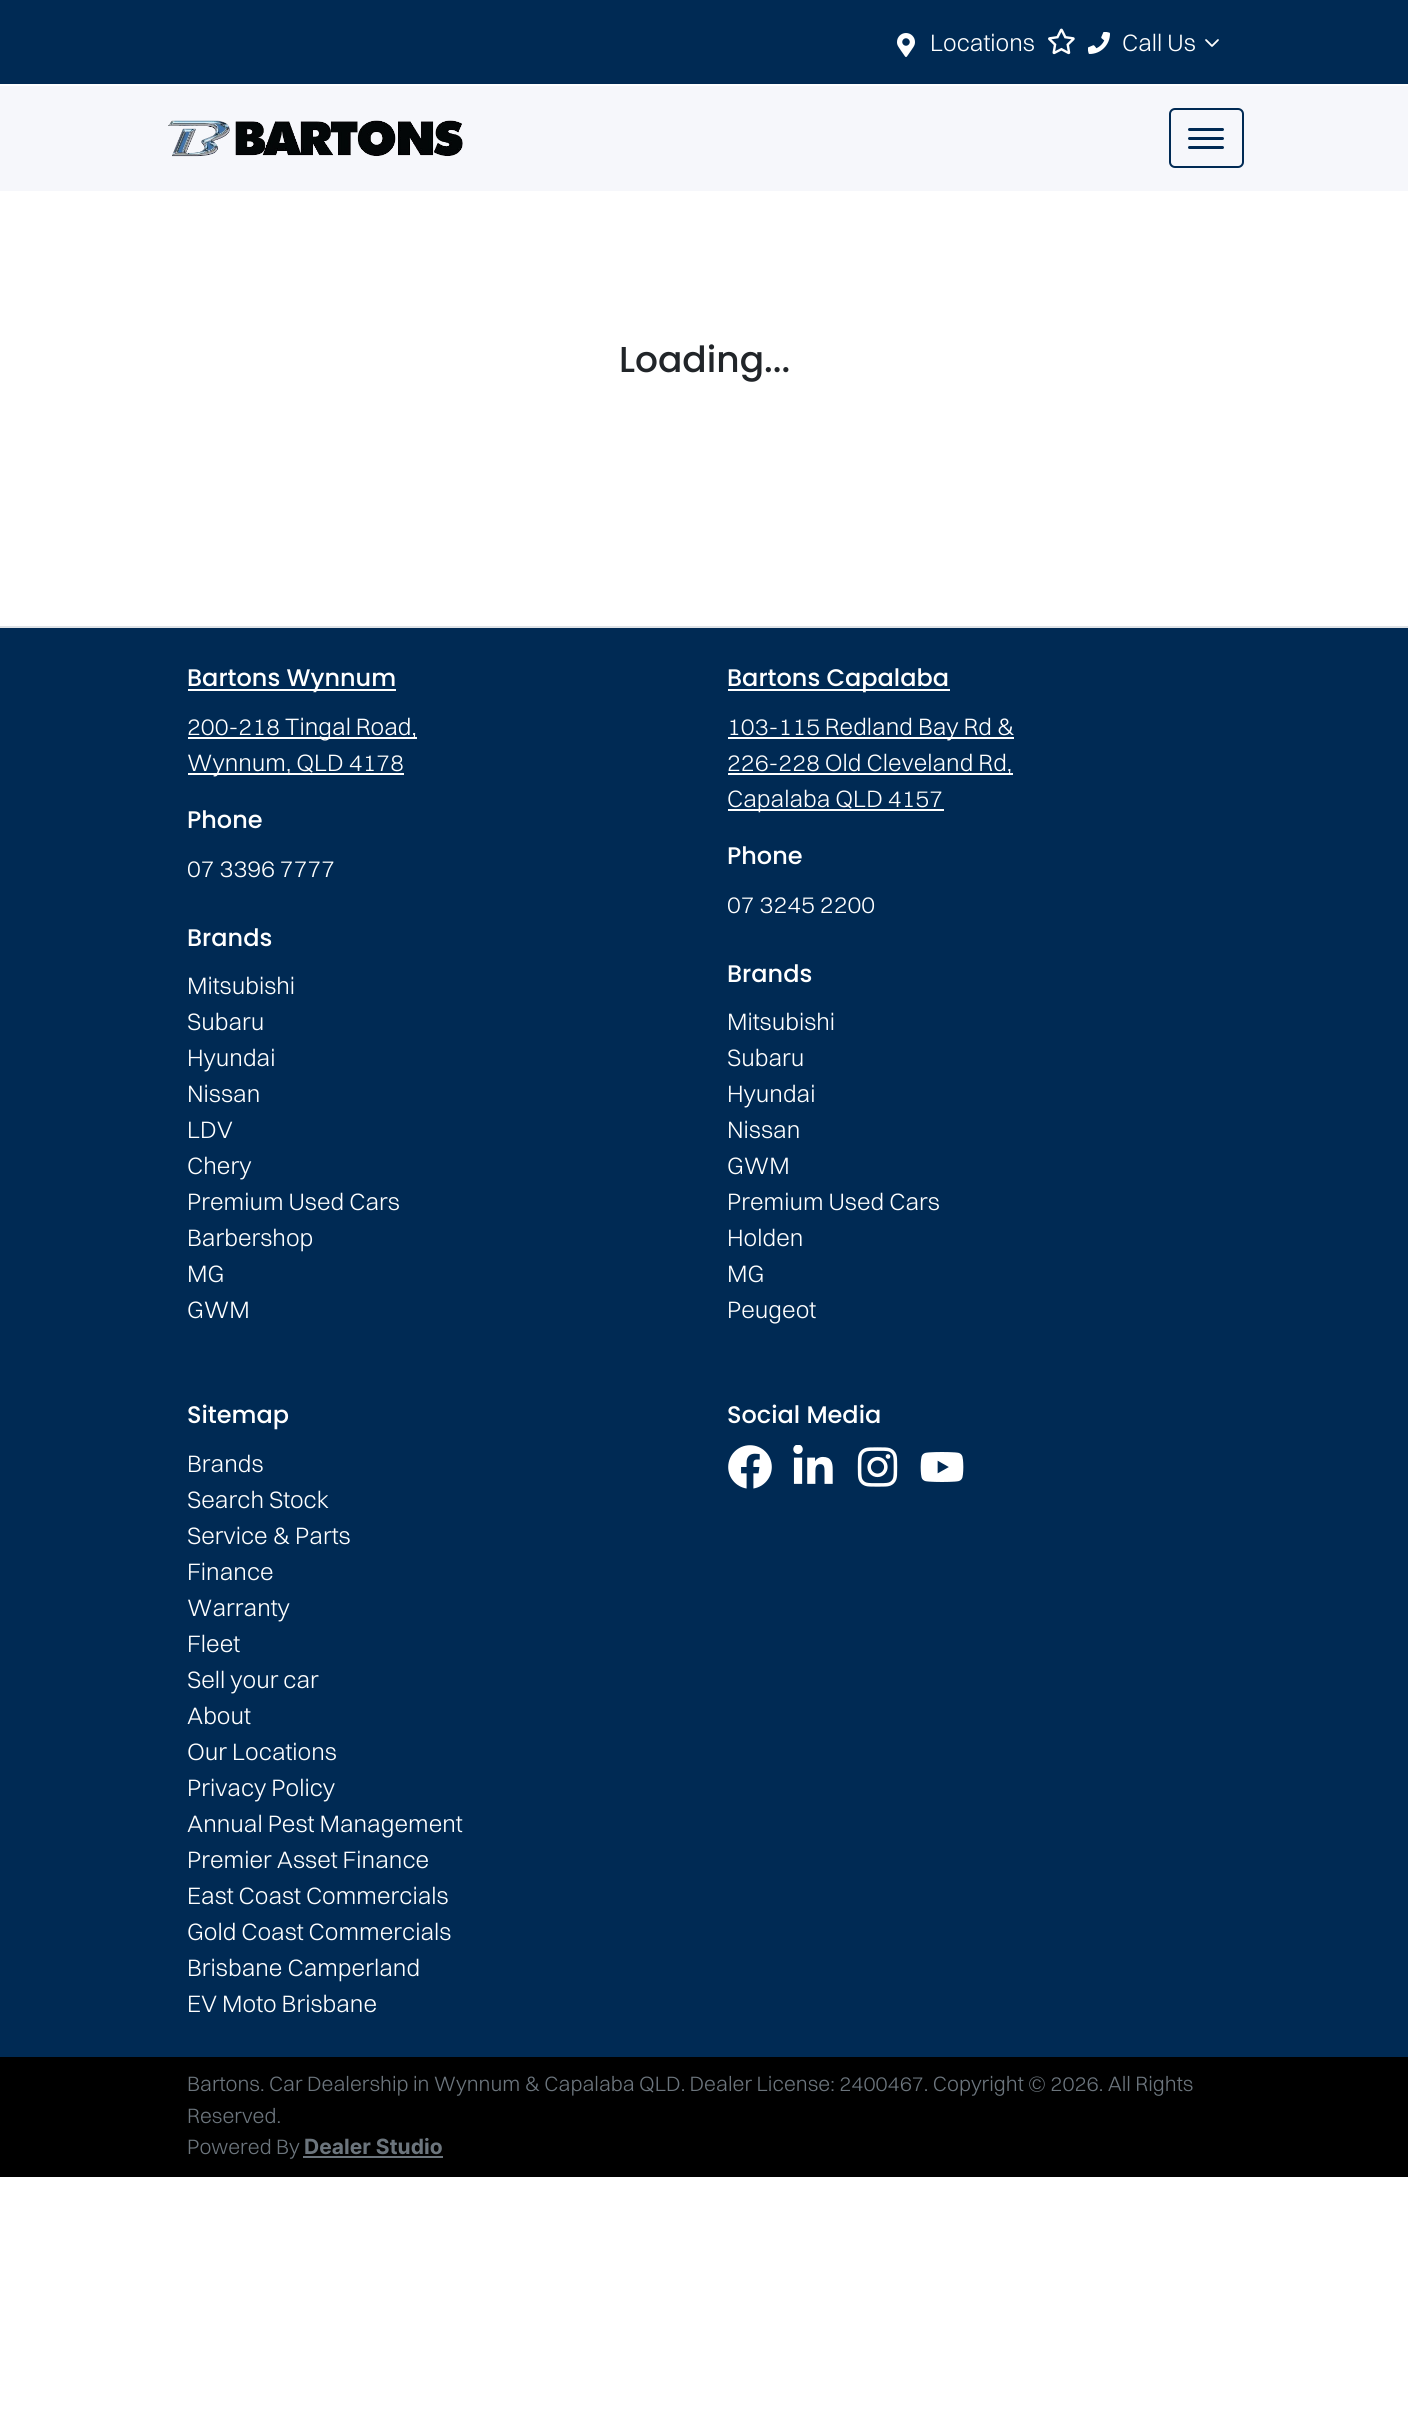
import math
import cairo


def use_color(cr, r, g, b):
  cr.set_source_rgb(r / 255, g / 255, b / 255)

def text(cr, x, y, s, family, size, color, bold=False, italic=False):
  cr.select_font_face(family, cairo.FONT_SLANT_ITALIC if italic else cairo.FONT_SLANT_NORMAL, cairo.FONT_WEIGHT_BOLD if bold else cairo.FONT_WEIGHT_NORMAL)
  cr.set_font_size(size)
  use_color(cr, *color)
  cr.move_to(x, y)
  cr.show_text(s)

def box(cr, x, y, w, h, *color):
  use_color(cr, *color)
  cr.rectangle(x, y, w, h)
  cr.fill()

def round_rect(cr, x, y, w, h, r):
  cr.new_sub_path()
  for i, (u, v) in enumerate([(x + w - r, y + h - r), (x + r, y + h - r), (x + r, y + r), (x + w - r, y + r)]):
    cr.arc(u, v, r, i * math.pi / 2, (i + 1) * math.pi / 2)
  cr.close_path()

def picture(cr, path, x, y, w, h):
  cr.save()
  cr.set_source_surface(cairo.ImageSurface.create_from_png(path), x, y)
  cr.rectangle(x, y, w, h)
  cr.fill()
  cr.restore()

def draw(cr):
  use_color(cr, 255, 255, 255)
  cr.paint()
  box(cr, 0, 0, 1408, 84, 0, 42, 84)
  picture(cr, "img_01.png", 897, 33, 18, 24)
  picture(cr, "img_02.png", 1048, 28, 27, 27)
  picture(cr, "img_03.png", 1088, 32, 22, 22)
  picture(cr, "img_04.png", 1205, 39, 14, 8)
  box(cr, 0, 86, 1408, 105, 246, 247, 251)
  picture(cr, "img_05.png", 168, 120, 295, 37)
  round_rect(cr, 1170, 109, 73, 58, 5)
  use_color(cr, 0, 42, 84)
  cr.stroke()
  round_rect(cr, 1188, 128, 36, 3, 1.5)
  cr.fill()
  round_rect(cr, 1188, 137, 36, 3, 1.5)
  cr.fill()
  round_rect(cr, 1188, 146, 36, 3, 1.5)
  cr.fill()
  box(cr, 0, 628, 1408, 1429, 0, 42, 84)
  box(cr, 0, 626, 1408, 2, 222, 226, 230)
  box(cr, 188, 689, 208, 2, 255, 255, 255)
  box(cr, 188, 737, 229, 2, 255, 255, 255)
  box(cr, 188, 773, 216, 2, 255, 255, 255)
  box(cr, 728, 689, 222, 2, 255, 255, 255)
  box(cr, 728, 737, 286, 2, 255, 255, 255)
  box(cr, 728, 773, 285, 2, 255, 255, 255)
  box(cr, 728, 809, 216, 2, 255, 255, 255)
  picture(cr, "img_06.png", 728, 1445, 44, 44)
  picture(cr, "img_07.png", 793, 1445, 40, 39)
  picture(cr, "img_08.png", 857, 1447, 41, 40)
  picture(cr, "img_09.png", 920, 1452, 44, 30)
  box(cr, 0, 2057, 1408, 120, 0, 0, 0)
  box(cr, 303, 2156, 140, 2, 108, 117, 125)
  text(cr, 930, 51, "Locations", "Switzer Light", 24, (255, 255, 255))
  text(cr, 1122, 51, "Call Us", "Switzer Light", 24, (255, 255, 255))
  text(cr, 619, 372, "Loading...", "Poppins Medium", 36, (33, 37, 41))
  text(cr, 187, 686, "Bartons Wynnum", "Poppins Medium", 24, (255, 255, 255))
  text(cr, 187, 735, "200-218 Tingal Road,", "Switzer Light", 24, (255, 255, 255))
  text(cr, 187, 771, "Wynnum, QLD 4178", "Switzer Light", 24, (255, 255, 255))
  text(cr, 187, 828, "Phone", "Poppins Medium", 24, (255, 255, 255))
  text(cr, 187, 877, "07 3396 7777", "Switzer Light", 24, (255, 255, 255))
  text(cr, 187, 946, "Brands", "Poppins Medium", 24, (255, 255, 255))
  text(cr, 187, 994, "Mitsubishi", "Switzer Light", 24, (255, 255, 255))
  text(cr, 187, 1030, "Subaru", "Switzer Light", 24, (255, 255, 255))
  text(cr, 187, 1066, "Hyundai", "Switzer Light", 24, (255, 255, 255))
  text(cr, 187, 1102, "Nissan", "Switzer Light", 24, (255, 255, 255))
  text(cr, 187, 1138, "LDV", "Switzer Light", 24, (255, 255, 255))
  text(cr, 187, 1174, "Chery", "Switzer Light", 24, (255, 255, 255))
  text(cr, 187, 1210, "Premium Used Cars", "Switzer Light", 24, (255, 255, 255))
  text(cr, 187, 1246, "Barbershop", "Switzer Light", 24, (255, 255, 255))
  text(cr, 187, 1282, "MG", "Switzer Light", 24, (255, 255, 255))
  text(cr, 187, 1318, "GWM", "Switzer Light", 24, (255, 255, 255))
  text(cr, 727, 686, "Bartons Capalaba", "Poppins Medium", 24, (255, 255, 255))
  text(cr, 727, 735, "103-115 Redland Bay Rd &", "Switzer Light", 24, (255, 255, 255))
  text(cr, 727, 771, "226-228 Old Cleveland Rd,", "Switzer Light", 24, (255, 255, 255))
  text(cr, 727, 807, "Capalaba QLD 4157", "Switzer Light", 24, (255, 255, 255))
  text(cr, 727, 864, "Phone", "Poppins Medium", 24, (255, 255, 255))
  text(cr, 727, 913, "07 3245 2200", "Switzer Light", 24, (255, 255, 255))
  text(cr, 727, 982, "Brands", "Poppins Medium", 24, (255, 255, 255))
  text(cr, 727, 1030, "Mitsubishi", "Switzer Light", 24, (255, 255, 255))
  text(cr, 727, 1066, "Subaru", "Switzer Light", 24, (255, 255, 255))
  text(cr, 727, 1102, "Hyundai", "Switzer Light", 24, (255, 255, 255))
  text(cr, 727, 1138, "Nissan", "Switzer Light", 24, (255, 255, 255))
  text(cr, 727, 1174, "GWM", "Switzer Light", 24, (255, 255, 255))
  text(cr, 727, 1210, "Premium Used Cars", "Switzer Light", 24, (255, 255, 255))
  text(cr, 727, 1246, "Holden", "Switzer Light", 24, (255, 255, 255))
  text(cr, 727, 1282, "MG", "Switzer Light", 24, (255, 255, 255))
  text(cr, 727, 1318, "Peugeot", "Switzer Light", 24, (255, 255, 255))
  text(cr, 187, 1423, "Sitemap", "Poppins Medium", 24, (255, 255, 255))
  text(cr, 187, 1472, "Brands", "Switzer Light", 24, (255, 255, 255))
  text(cr, 187, 1508, "Search Stock", "Switzer Light", 24, (255, 255, 255))
  text(cr, 187, 1544, "Service & Parts", "Switzer Light", 24, (255, 255, 255))
  text(cr, 187, 1580, "Finance", "Switzer Light", 24, (255, 255, 255))
  text(cr, 187, 1616, "Warranty", "Switzer Light", 24, (255, 255, 255))
  text(cr, 187, 1652, "Fleet", "Switzer Light", 24, (255, 255, 255))
  text(cr, 187, 1688, "Sell your car", "Switzer Light", 24, (255, 255, 255))
  text(cr, 187, 1724, "About", "Switzer Light", 24, (255, 255, 255))
  text(cr, 187, 1760, "Our Locations", "Switzer Light", 24, (255, 255, 255))
  text(cr, 187, 1796, "Privacy Policy", "Switzer Light", 24, (255, 255, 255))
  text(cr, 187, 1832, "Annual Pest Management", "Switzer Light", 24, (255, 255, 255))
  text(cr, 187, 1868, "Premier Asset Finance", "Switzer Light", 24, (255, 255, 255))
  text(cr, 187, 1904, "East Coast Commercials", "Switzer Light", 24, (255, 255, 255))
  text(cr, 187, 1940, "Gold Coast Commercials", "Switzer Light", 24, (255, 255, 255))
  text(cr, 187, 1976, "Brisbane Camperland", "Switzer Light", 24, (255, 255, 255))
  text(cr, 187, 2012, "EV Moto Brisbane", "Switzer Light", 24, (255, 255, 255))
  text(cr, 727, 1423, "Social Media", "Poppins Medium", 24, (255, 255, 255))
  text(cr, 187, 2091, "Bartons. Car Dealership in Wynnum & Capalaba QLD. Dealer License: 2400467. Copyright © 2026. All Rights", "Switzer Light", 21, (108, 117, 125))
  text(cr, 187, 2123, "Reserved.", "Switzer Light", 21, (108, 117, 125))
  text(cr, 187, 2154, "Powered By", "Switzer Light", 21, (108, 117, 125))
  text(cr, 304, 2154, "Dealer Studio", "Inter", 21, (108, 117, 125), bold=True)


surface = cairo.ImageSurface(cairo.FORMAT_RGB24, 1408, 2425)
cr = cairo.Context(surface)
options = cairo.FontOptions()
options.set_hint_metrics(cairo.HINT_METRICS_OFF)
options.set_hint_style(cairo.HINT_STYLE_NONE)
cr.set_font_options(options)
cr.set_miter_limit(4)
draw(cr)
surface.write_to_png("out.png")
